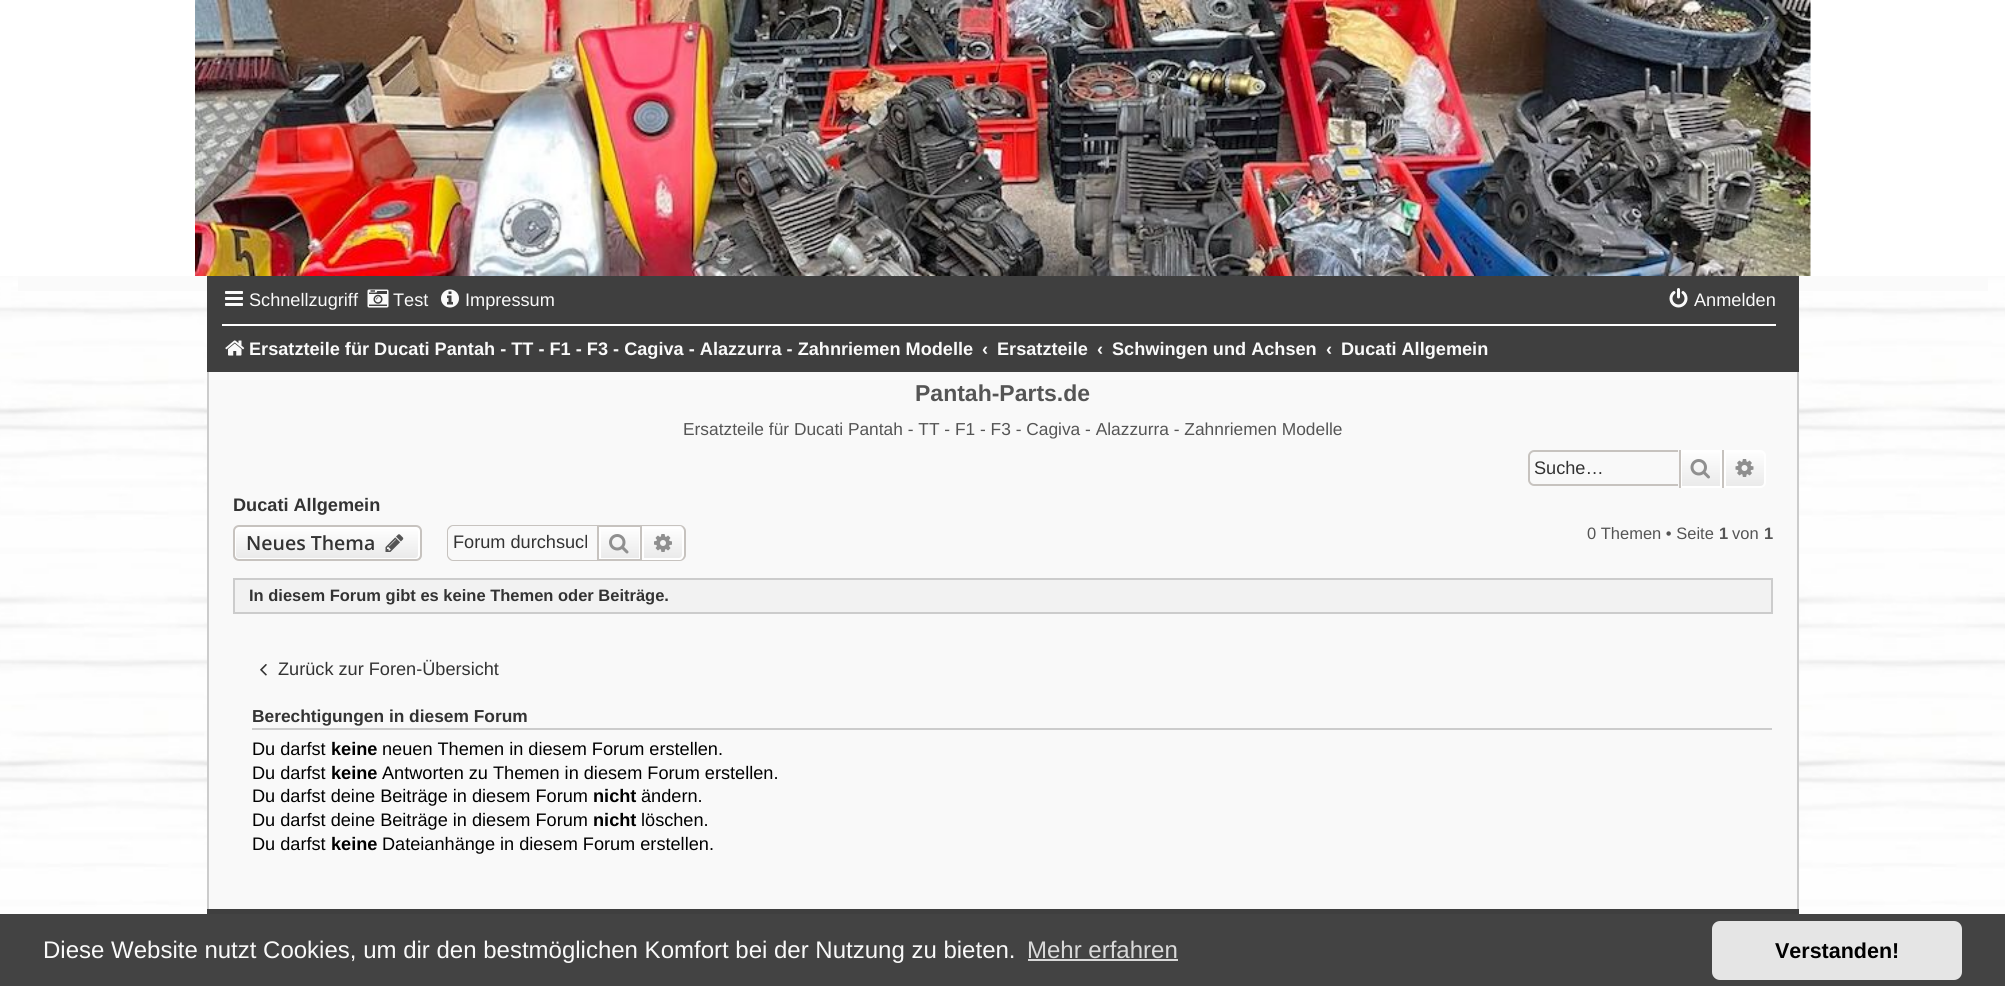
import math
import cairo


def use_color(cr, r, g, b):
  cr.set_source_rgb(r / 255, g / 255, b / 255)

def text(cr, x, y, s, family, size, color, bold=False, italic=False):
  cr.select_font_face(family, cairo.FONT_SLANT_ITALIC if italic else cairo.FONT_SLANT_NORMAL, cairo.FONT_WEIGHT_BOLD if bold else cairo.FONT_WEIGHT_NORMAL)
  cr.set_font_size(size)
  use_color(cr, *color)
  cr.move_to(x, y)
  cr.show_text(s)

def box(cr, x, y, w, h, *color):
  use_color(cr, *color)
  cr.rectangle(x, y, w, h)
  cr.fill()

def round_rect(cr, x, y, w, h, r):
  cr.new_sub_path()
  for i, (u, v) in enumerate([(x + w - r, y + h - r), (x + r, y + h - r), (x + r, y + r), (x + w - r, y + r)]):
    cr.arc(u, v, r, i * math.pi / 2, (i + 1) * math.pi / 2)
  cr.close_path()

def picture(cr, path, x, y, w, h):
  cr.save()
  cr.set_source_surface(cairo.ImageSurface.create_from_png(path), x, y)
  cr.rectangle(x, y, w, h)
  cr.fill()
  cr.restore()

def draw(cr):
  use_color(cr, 255, 255, 255)
  cr.paint()
  picture(cr, "img_01.png", 0, 276, 2005, 638)
  picture(cr, "img_02.png", 195, 0, 1616, 276)
  box(cr, 18, 276, 1970, 15, 250, 250, 250)
  box(cr, 209, 372, 1588, 537, 249, 249, 249)
  cr.rectangle(208, 318, 1590, 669)
  use_color(cr, 204, 204, 204)
  cr.stroke()
  box(cr, 207, 276, 1592, 96, 63, 63, 63)
  picture(cr, "img_03.png", 225, 291, 18, 15)
  picture(cr, "img_04.png", 367, 289, 22, 19)
  picture(cr, "img_05.png", 441, 289, 18, 19)
  picture(cr, "img_06.png", 1669, 288, 19, 20)
  box(cr, 222, 324, 1554, 2, 255, 255, 255)
  picture(cr, "img_07.png", 225, 340, 20, 16)
  use_color(cr, 199, 195, 191)
  cr.set_fill_rule(cairo.FILL_RULE_EVEN_ODD)
  cr.new_path()
  cr.move_to(1534, 450)
  cr.line_to(1678, 450)
  cr.line_to(1678, 486)
  cr.line_to(1534, 486)
  cr.curve_to(1531, 486, 1528, 483, 1528, 480)
  cr.line_to(1528, 456)
  cr.curve_to(1528, 453, 1531, 450, 1534, 450)
  cr.close_path()
  cr.move_to(1534, 452)
  cr.line_to(1678, 452)
  cr.line_to(1678, 484)
  cr.line_to(1534, 484)
  cr.curve_to(1532, 484, 1530, 482, 1530, 480)
  cr.line_to(1530, 456)
  cr.curve_to(1530, 454, 1532, 452, 1534, 452)
  cr.close_path()
  cr.fill()
  gradient = cairo.LinearGradient(1701, 450, 1701, 488)
  gradient.add_color_stop_rgba(0, 1, 1, 1, 1)
  gradient.add_color_stop_rgba(1, 0.914, 0.914, 0.914, 1)
  cr.set_source(gradient)
  cr.rectangle(1682, 452, 38, 34)
  cr.fill()
  cr.rectangle(1681, 451, 40, 36)
  use_color(cr, 255, 255, 255)
  cr.stroke()
  box(cr, 1722, 450, 2, 38, 199, 195, 191)
  box(cr, 1679, 450, 2, 38, 199, 195, 191)
  picture(cr, "img_08.png", 1690, 459, 20, 20)
  gradient = cairo.LinearGradient(1745, 450, 1745, 488)
  gradient.add_color_stop_rgba(0, 1, 1, 1, 1)
  gradient.add_color_stop_rgba(1, 0.914, 0.914, 0.914, 1)
  cr.set_source(gradient)
  cr.new_path()
  cr.move_to(1725, 451)
  cr.line_to(1760, 451)
  cr.curve_to(1763, 451, 1765, 453, 1765, 456)
  cr.line_to(1765, 482)
  cr.curve_to(1765, 485, 1763, 487, 1760, 487)
  cr.line_to(1725, 487)
  cr.close_path()
  cr.fill_preserve()
  use_color(cr, 255, 255, 255)
  cr.stroke()
  picture(cr, "img_09.png", 1735, 459, 19, 18)
  cr.save()
  cr.set_fill_rule(cairo.FILL_RULE_WINDING)
  round_rect(cr, 233, 525, 189, 36, 6)
  cr.clip()
  gradient = cairo.LinearGradient(327, 527, 327, 560)
  gradient.add_color_stop_rgba(0, 1, 1, 1, 1)
  gradient.add_color_stop_rgba(1, 0.914, 0.914, 0.914, 1)
  cr.set_source(gradient)
  cr.rectangle(233, 527, 189, 33)
  cr.fill()
  cr.restore()
  round_rect(cr, 235, 528, 184, 31, 4)
  cr.stroke()
  round_rect(cr, 234, 526, 187, 34, 5)
  use_color(cr, 199, 195, 191)
  cr.stroke()
  picture(cr, "img_10.png", 385, 534, 19, 18)
  cr.new_path()
  cr.move_to(453, 525)
  cr.line_to(597, 525)
  cr.line_to(597, 561)
  cr.line_to(453, 561)
  cr.curve_to(450, 561, 447, 558, 447, 555)
  cr.line_to(447, 531)
  cr.curve_to(447, 528, 450, 525, 453, 525)
  cr.close_path()
  cr.move_to(453, 526)
  cr.line_to(597, 526)
  cr.line_to(597, 560)
  cr.line_to(453, 560)
  cr.curve_to(451, 560, 448, 557, 448, 555)
  cr.line_to(448, 531)
  cr.curve_to(448, 529, 451, 526, 453, 526)
  cr.close_path()
  cr.fill()
  gradient = cairo.LinearGradient(620, 527, 620, 560)
  gradient.add_color_stop_rgba(0, 1, 1, 1, 1)
  gradient.add_color_stop_rgba(1, 0.914, 0.914, 0.914, 1)
  cr.set_source(gradient)
  cr.rectangle(601, 529, 38, 29)
  cr.fill()
  cr.rectangle(600, 528, 40, 31)
  use_color(cr, 255, 255, 255)
  cr.stroke()
  cr.rectangle(598, 526, 43, 34)
  use_color(cr, 199, 195, 191)
  cr.stroke()
  picture(cr, "img_11.png", 609, 534, 20, 20)
  gradient = cairo.LinearGradient(663, 527, 663, 560)
  gradient.add_color_stop_rgba(0, 1, 1, 1, 1)
  gradient.add_color_stop_rgba(1, 0.914, 0.914, 0.914, 1)
  cr.set_source(gradient)
  cr.new_path()
  cr.move_to(643, 528)
  cr.line_to(679, 528)
  cr.curve_to(681, 528, 683, 530, 683, 532)
  cr.line_to(683, 555)
  cr.curve_to(683, 557, 681, 559, 679, 559)
  cr.line_to(643, 559)
  cr.close_path()
  cr.fill_preserve()
  use_color(cr, 255, 255, 255)
  cr.stroke()
  use_color(cr, 199, 195, 191)
  cr.new_path()
  cr.move_to(642, 525)
  cr.line_to(680, 525)
  cr.curve_to(683, 525, 686, 528, 686, 531)
  cr.line_to(686, 555)
  cr.curve_to(686, 558, 683, 561, 680, 561)
  cr.line_to(642, 561)
  cr.close_path()
  cr.move_to(642, 526)
  cr.line_to(680, 526)
  cr.curve_to(682, 526, 684, 529, 684, 531)
  cr.line_to(684, 555)
  cr.curve_to(684, 557, 682, 560, 680, 560)
  cr.line_to(642, 560)
  cr.close_path()
  cr.fill()
  picture(cr, "img_12.png", 654, 534, 18, 18)
  use_color(cr, 242, 242, 242)
  cr.rectangle(234, 579, 1538, 34)
  cr.fill_preserve()
  use_color(cr, 204, 204, 204)
  cr.stroke()
  picture(cr, "img_13.png", 260, 664, 7, 12)
  box(cr, 252, 728, 1520, 2, 204, 204, 204)
  box(cr, 207, 909, 1592, 5, 63, 63, 63)
  box(cr, 0, 914, 2005, 72, 67, 67, 67)
  box(cr, 1028, 959, 150, 2, 217, 217, 217)
  use_color(cr, 229, 229, 229)
  round_rect(cr, 1712, 921, 250, 59, 8)
  cr.fill()
  text(cr, 249, 306, "Schnellzugriff", "Liberation Sans", 18.15, (250, 250, 250))
  text(cr, 393, 306, "Test", "Liberation Sans", 18.15, (250, 250, 250))
  text(cr, 465, 306, "Impressum", "Liberation Sans", 18.15, (250, 250, 250))
  text(cr, 1694, 306, "Anmelden", "Liberation Sans", 18.15, (250, 250, 250))
  text(cr, 249, 355, "Ersatzteile für Ducati Pantah - TT - F1 - F3 - Cagiva - Alazzurra - Zahnriemen Modelle", "Liberation Sans", 18.15, (250, 250, 250), bold=True)
  text(cr, 982, 355, "‹", "Liberation Sans", 18.15, (250, 250, 250), bold=True)
  text(cr, 997, 355, "Ersatzteile", "Liberation Sans", 18.15, (250, 250, 250), bold=True)
  text(cr, 1097, 355, "‹", "Liberation Sans", 18.15, (250, 250, 250), bold=True)
  text(cr, 1112, 355, "Schwingen und Achsen", "Liberation Sans", 18.15, (250, 250, 250), bold=True)
  text(cr, 1326, 355, "‹", "Liberation Sans", 18.15, (250, 250, 250), bold=True)
  text(cr, 1341, 355, "Ducati Allgemein", "Liberation Sans", 18.15, (250, 250, 250), bold=True)
  text(cr, 915, 401, "Pantah-Parts.de", "Liberation Sans", 23, (85, 85, 85), bold=True)
  text(cr, 683, 435, "Ersatzteile für Ducati Pantah - TT - F1 - F3 - Cagiva - Alazzurra - Zahnriemen Modelle", "Liberation Sans", 17.35, (85, 85, 85))
  text(cr, 1534, 474, "Suche…", "Liberation Sans", 18.15, (51, 51, 51))
  text(cr, 233, 511, "Ducati Allgemein", "Liberation Sans", 18.15, (51, 51, 51), bold=True)
  text(cr, 246, 550, "Neues Thema", "Open Sans SemiBold", 19.5, (51, 51, 51))
  cr.save()
  cr.set_fill_rule(cairo.FILL_RULE_WINDING)
  cr.rectangle(453, 533, 134, 21)
  cr.clip()
  text(cr, 453, 548, "Forum durchsuch", "Liberation Sans", 18.15, (51, 51, 51))
  cr.restore()
  text(cr, 1587, 539, "0 Themen • Seite", "Liberation Sans", 16.5, (85, 85, 85))
  text(cr, 1719, 539, "1", "Liberation Sans", 16.5, (85, 85, 85), bold=True)
  text(cr, 1732, 539, "von", "Liberation Sans", 16.5, (85, 85, 85))
  text(cr, 1764, 539, "1", "Liberation Sans", 16.5, (85, 85, 85), bold=True)
  text(cr, 249, 601, "In diesem Forum gibt es keine Themen oder Beiträge.", "Liberation Sans", 16.5, (51, 51, 51), bold=True)
  text(cr, 278, 675, "Zurück zur Foren-Übersicht", "Liberation Sans", 18.15, (51, 51, 51))
  text(cr, 252, 722, "Berechtigungen in diesem Forum", "Liberation Sans", 17.35, (51, 51, 51), bold=True)
  text(cr, 252, 755, "Du darfst", "Liberation Sans", 18.15, (0, 0, 0))
  text(cr, 331, 755, "keine", "Liberation Sans", 18.15, (0, 0, 0), bold=True)
  text(cr, 382, 755, "neuen Themen in diesem Forum erstellen.", "Liberation Sans", 18.15, (0, 0, 0))
  text(cr, 252, 779, "Du darfst", "Liberation Sans", 18.15, (0, 0, 0))
  text(cr, 331, 779, "keine", "Liberation Sans", 18.15, (0, 0, 0), bold=True)
  text(cr, 382, 779, "Antworten zu Themen in diesem Forum erstellen.", "Liberation Sans", 18.15, (0, 0, 0))
  text(cr, 252, 802, "Du darfst deine Beiträge in diesem Forum", "Liberation Sans", 18.15, (0, 0, 0))
  text(cr, 593, 802, "nicht", "Liberation Sans", 18.15, (0, 0, 0), bold=True)
  text(cr, 641, 802, "ändern.", "Liberation Sans", 18.15, (0, 0, 0))
  text(cr, 252, 826, "Du darfst deine Beiträge in diesem Forum", "Liberation Sans", 18.15, (0, 0, 0))
  text(cr, 593, 826, "nicht", "Liberation Sans", 18.15, (0, 0, 0), bold=True)
  text(cr, 641, 826, "löschen.", "Liberation Sans", 18.15, (0, 0, 0))
  text(cr, 252, 850, "Du darfst", "Liberation Sans", 18.15, (0, 0, 0))
  text(cr, 331, 850, "keine", "Liberation Sans", 18.15, (0, 0, 0), bold=True)
  text(cr, 382, 850, "Dateianhänge in diesem Forum erstellen.", "Liberation Sans", 18.15, (0, 0, 0))
  text(cr, 43, 958, "Diese Website nutzt Cookies, um dir den bestmöglichen Komfort bei der Nutzung zu bieten.", "Liberation Sans", 24, (250, 250, 250))
  text(cr, 1027, 958, "Mehr erfahren", "Liberation Sans", 24, (217, 217, 217))
  text(cr, 1775, 958, "Verstanden!", "Liberation Sans", 21.5, (0, 0, 0), bold=True)


surface = cairo.ImageSurface(cairo.FORMAT_RGB24, 2005, 986)
cr = cairo.Context(surface)
options = cairo.FontOptions()
options.set_hint_metrics(cairo.HINT_METRICS_OFF)
options.set_hint_style(cairo.HINT_STYLE_NONE)
cr.set_font_options(options)
cr.set_miter_limit(4)
draw(cr)
surface.write_to_png("out.png")
